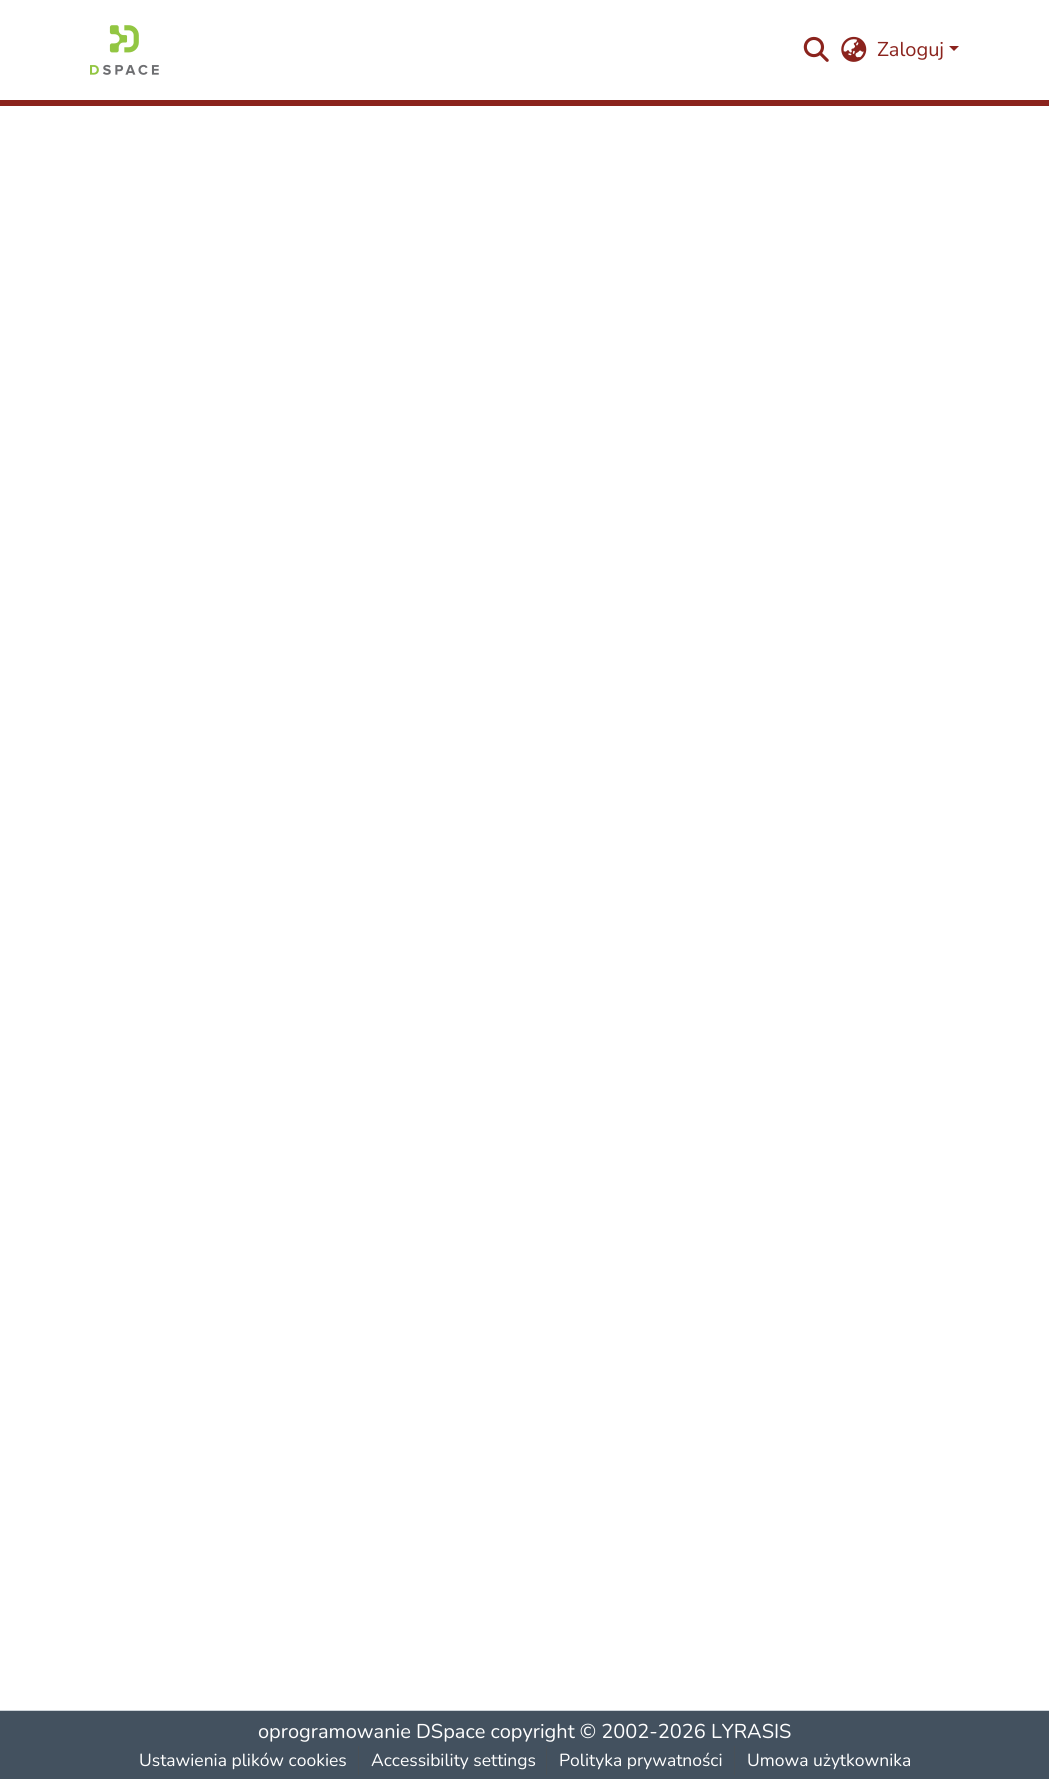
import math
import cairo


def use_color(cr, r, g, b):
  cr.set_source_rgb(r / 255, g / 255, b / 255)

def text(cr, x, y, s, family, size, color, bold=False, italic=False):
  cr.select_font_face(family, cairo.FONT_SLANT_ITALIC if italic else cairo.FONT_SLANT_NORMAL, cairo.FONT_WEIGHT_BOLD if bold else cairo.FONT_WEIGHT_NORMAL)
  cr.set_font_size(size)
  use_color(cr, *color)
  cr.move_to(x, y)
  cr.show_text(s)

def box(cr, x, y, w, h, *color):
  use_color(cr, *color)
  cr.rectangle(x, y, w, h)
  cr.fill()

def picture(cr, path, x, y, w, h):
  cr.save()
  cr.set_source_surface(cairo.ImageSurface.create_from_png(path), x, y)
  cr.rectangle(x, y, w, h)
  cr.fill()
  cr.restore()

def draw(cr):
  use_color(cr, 255, 255, 255)
  cr.paint()
  box(cr, 0, 100, 1049, 6, 139, 35, 29)
  picture(cr, "img_01.png", 90, 25, 69, 50)
  picture(cr, "img_02.png", 803, 36, 26, 26)
  picture(cr, "img_03.png", 841, 36, 26, 26)
  cr.new_path()
  cr.move_to(949, 46)
  cr.line_to(959, 46)
  cr.line_to(954, 51)
  cr.close_path()
  cr.fill()
  box(cr, 0, 1711, 1049, 68, 67, 81, 95)
  box(cr, 0, 1710, 1049, 1, 206, 212, 218)
  box(cr, 358, 1746, 1, 29, 73, 80, 87)
  box(cr, 546, 1746, 1, 29, 73, 80, 87)
  box(cr, 734, 1746, 1, 29, 73, 80, 87)
  text(cr, 877, 56, "Zaloguj", "Nunito", 20, (139, 35, 29))
  text(cr, 258, 1738, "oprogramowanie DSpace copyright © 2002-2026 LYRASIS", "Nunito", 20, (255, 255, 255))
  text(cr, 139, 1766, "Ustawienia plików cookies", "Nunito", 17.5, (255, 255, 255))
  text(cr, 371, 1766, "Accessibility settings", "Nunito", 17.5, (255, 255, 255))
  text(cr, 559, 1766, "Polityka prywatności", "Nunito", 17.5, (255, 255, 255))
  text(cr, 747, 1766, "Umowa użytkownika", "Nunito", 17.5, (255, 255, 255))


surface = cairo.ImageSurface(cairo.FORMAT_RGB24, 1049, 1779)
cr = cairo.Context(surface)
options = cairo.FontOptions()
options.set_hint_metrics(cairo.HINT_METRICS_OFF)
options.set_hint_style(cairo.HINT_STYLE_NONE)
cr.set_font_options(options)
cr.set_miter_limit(4)
draw(cr)
surface.write_to_png("out.png")
